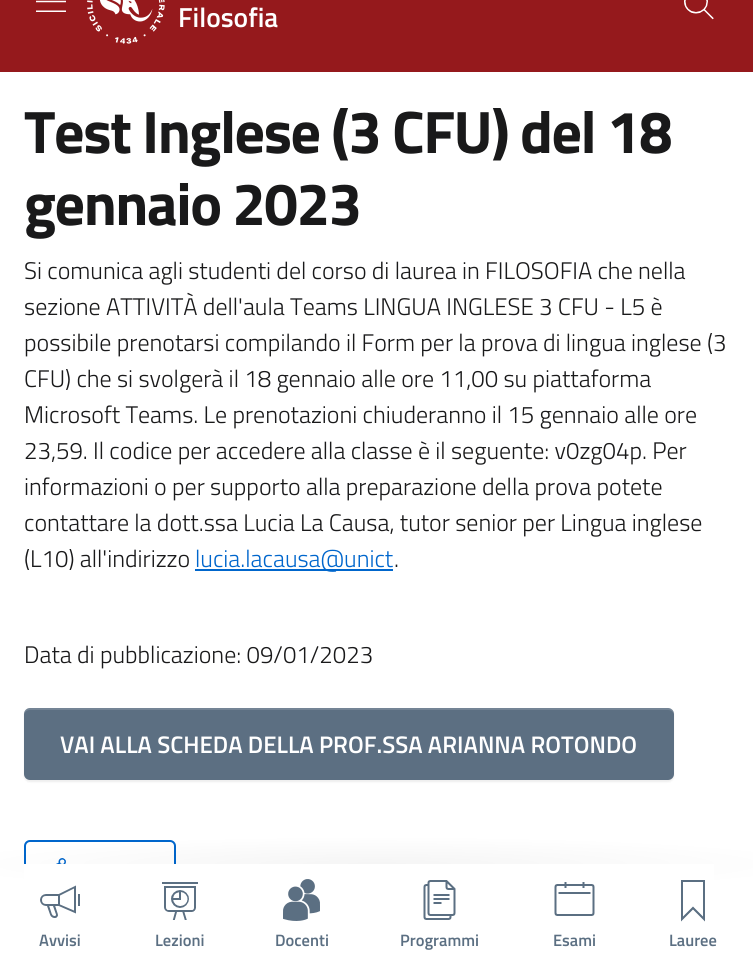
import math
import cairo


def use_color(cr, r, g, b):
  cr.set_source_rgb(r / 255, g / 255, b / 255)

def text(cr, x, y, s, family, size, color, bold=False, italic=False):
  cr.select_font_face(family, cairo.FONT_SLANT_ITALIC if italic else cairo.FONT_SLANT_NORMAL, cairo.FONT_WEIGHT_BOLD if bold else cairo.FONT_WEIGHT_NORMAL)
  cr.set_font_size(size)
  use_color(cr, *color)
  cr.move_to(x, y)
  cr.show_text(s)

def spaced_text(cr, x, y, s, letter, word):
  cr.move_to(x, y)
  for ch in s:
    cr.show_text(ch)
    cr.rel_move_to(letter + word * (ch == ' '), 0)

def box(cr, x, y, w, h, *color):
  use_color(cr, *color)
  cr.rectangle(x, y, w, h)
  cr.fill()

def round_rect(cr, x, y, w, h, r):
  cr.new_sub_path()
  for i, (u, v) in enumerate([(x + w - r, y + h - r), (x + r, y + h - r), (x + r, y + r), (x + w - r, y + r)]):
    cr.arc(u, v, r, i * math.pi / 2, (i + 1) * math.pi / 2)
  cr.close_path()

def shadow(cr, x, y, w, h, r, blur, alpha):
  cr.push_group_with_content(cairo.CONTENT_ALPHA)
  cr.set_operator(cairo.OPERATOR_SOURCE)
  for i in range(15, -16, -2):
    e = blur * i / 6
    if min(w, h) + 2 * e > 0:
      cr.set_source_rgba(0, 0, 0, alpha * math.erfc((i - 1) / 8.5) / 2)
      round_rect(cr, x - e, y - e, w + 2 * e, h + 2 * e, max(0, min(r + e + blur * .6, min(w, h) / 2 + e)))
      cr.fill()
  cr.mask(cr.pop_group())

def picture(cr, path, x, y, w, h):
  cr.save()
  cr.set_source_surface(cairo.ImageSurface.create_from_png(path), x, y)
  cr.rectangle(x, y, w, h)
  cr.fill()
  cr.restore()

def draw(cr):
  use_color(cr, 255, 255, 255)
  cr.paint()
  box(cr, 0, 0, 753, 72, 149, 25, 28)
  picture(cr, "img_01.png", 36, 0, 30, 12)
  picture(cr, "img_02.png", 87, 0, 78, 44)
  picture(cr, "img_03.png", 684, 0, 30, 20)
  box(cr, 195, 569, 198, 2, 0, 102, 204)
  use_color(cr, 0, 0, 0)
  shadow(cr, 24, 710, 650, 72, 6, 1, 0.07)
  use_color(cr, 92, 111, 130)
  round_rect(cr, 24, 708, 650, 72, 6)
  cr.fill()
  cr.set_source_rgba(1, 1, 1, 0.15)
  cr.new_path()
  cr.move_to(30, 710)
  cr.line_to(668, 710)
  cr.curve_to(671, 710, 674, 712, 674, 716)
  cr.curve_to(674, 712, 673, 708, 668, 708)
  cr.line_to(30, 708)
  cr.curve_to(25, 708, 24, 712, 24, 716)
  cr.curve_to(24, 712, 27, 710, 30, 710)
  cr.close_path()
  cr.fill()
  round_rect(cr, 25, 841, 150, 58, 5)
  use_color(cr, 0, 102, 204)
  cr.stroke()
  picture(cr, "img_04.png", 56, 858, 10, 6)
  gradient = cairo.RadialGradient(0, 0, 0, 0, 0, 1)
  gradient.set_matrix(cairo.Matrix(1 / 745, 0, 0, 1 / 46, -1 * 377 / 745, -1 * 864 / 46))
  gradient.add_color_stop_rgba(0, 0, 0, 0, 0.04)
  gradient.add_color_stop_rgba(0.6, 0, 0, 0, 0)
  cr.set_source(gradient)
  cr.new_path()
  cr.move_to(376.5, 831.5)
  cr.curve_to(667.5, 831.5, 903.5, 846, 903.5, 864)
  cr.curve_to(903.5, 882, 667.5, 896.5, 376.5, 896.5)
  cr.curve_to(85.5, 896.5, -150.5, 882, -150.5, 864)
  cr.curve_to(-150.5, 846, 85.5, 831.5, 376.5, 831.5)
  cr.close_path()
  cr.fill()
  box(cr, 24, 864, 690, 36, 255, 255, 255)
  picture(cr, "img_05.png", 40, 885, 40, 33)
  picture(cr, "img_06.png", 162, 882, 36, 38)
  picture(cr, "img_07.png", 283, 879, 37, 42)
  picture(cr, "img_08.png", 423, 880, 33, 40)
  picture(cr, "img_09.png", 554, 882, 41, 34)
  picture(cr, "img_10.png", 681, 880, 24, 42)
  text(cr, 178, 27, "Filosofia", "Titillium Web SemiBold", 27.5, (255, 255, 255))
  cr.select_font_face("Titillium Web", cairo.FONT_SLANT_NORMAL, cairo.FONT_WEIGHT_BOLD)
  cr.set_font_size(60)
  use_color(cr, 25, 25, 26)
  spaced_text(cr, 24, 153, "Test Inglese (3 CFU) del 18", -1.5, 0)
  spaced_text(cr, 24, 225, "gennaio 2023", -1.5, 0)
  text(cr, 24, 279, "Si comunica agli studenti del corso di laurea in FILOSOFIA che nella", "Titillium Web Light", 24, (25, 25, 26))
  text(cr, 24, 315, "sezione ATTIVITÀ dell'aula Teams LINGUA INGLESE 3 CFU - L5 è", "Titillium Web Light", 24, (25, 25, 26))
  text(cr, 24, 351, "possibile prenotarsi compilando il Form per la prova di lingua inglese (3", "Titillium Web Light", 24, (25, 25, 26))
  text(cr, 24, 387, "CFU) che si svolgerà il 18 gennaio alle ore 11,00 su piattaforma", "Titillium Web Light", 24, (25, 25, 26))
  text(cr, 24, 423, "Microsoft Teams. Le prenotazioni chiuderanno il 15 gennaio alle ore", "Titillium Web Light", 24, (25, 25, 26))
  text(cr, 24, 459, "23,59. Il codice per accedere alla classe è il seguente: v0zg04p. Per", "Titillium Web Light", 24, (25, 25, 26))
  text(cr, 24, 495, "informazioni o per supporto alla preparazione della prova potete", "Titillium Web Light", 24, (25, 25, 26))
  text(cr, 24, 531, "contattare la dott.ssa Lucia La Causa, tutor senior per Lingua inglese", "Titillium Web Light", 24, (25, 25, 26))
  text(cr, 24, 567, "(L10) all'indirizzo", "Titillium Web Light", 24, (25, 25, 26))
  text(cr, 195, 567, "lucia.lacausa@unict", "Titillium Web Light", 24, (0, 102, 204))
  text(cr, 394, 567, ".", "Titillium Web Light", 24, (25, 25, 26))
  text(cr, 24, 663, "Data di pubblicazione: 09/01/2023", "Titillium Web Light", 24, (25, 25, 26))
  text(cr, 60, 753, "VAI ALLA SCHEDA DELLA PROF.SSA ARIANNA ROTONDO", "Titillium Web SemiBold", 24, (255, 255, 255))
  text(cr, 39, 946, "Avvisi", "Titillium Web SemiBold", 16.5, (91, 111, 130))
  text(cr, 155, 946, "Lezioni", "Titillium Web SemiBold", 16.5, (91, 111, 130))
  text(cr, 275, 946, "Docenti", "Titillium Web SemiBold", 16.5, (91, 111, 130))
  text(cr, 400, 946, "Programmi", "Titillium Web SemiBold", 16.5, (91, 111, 130))
  text(cr, 553, 946, "Esami", "Titillium Web SemiBold", 16.5, (91, 111, 130))
  text(cr, 669, 946, "Lauree", "Titillium Web SemiBold", 16.5, (91, 111, 130))


surface = cairo.ImageSurface(cairo.FORMAT_RGB24, 753, 959)
cr = cairo.Context(surface)
options = cairo.FontOptions()
options.set_hint_metrics(cairo.HINT_METRICS_OFF)
options.set_hint_style(cairo.HINT_STYLE_NONE)
cr.set_font_options(options)
cr.set_miter_limit(4)
draw(cr)
surface.write_to_png("out.png")
